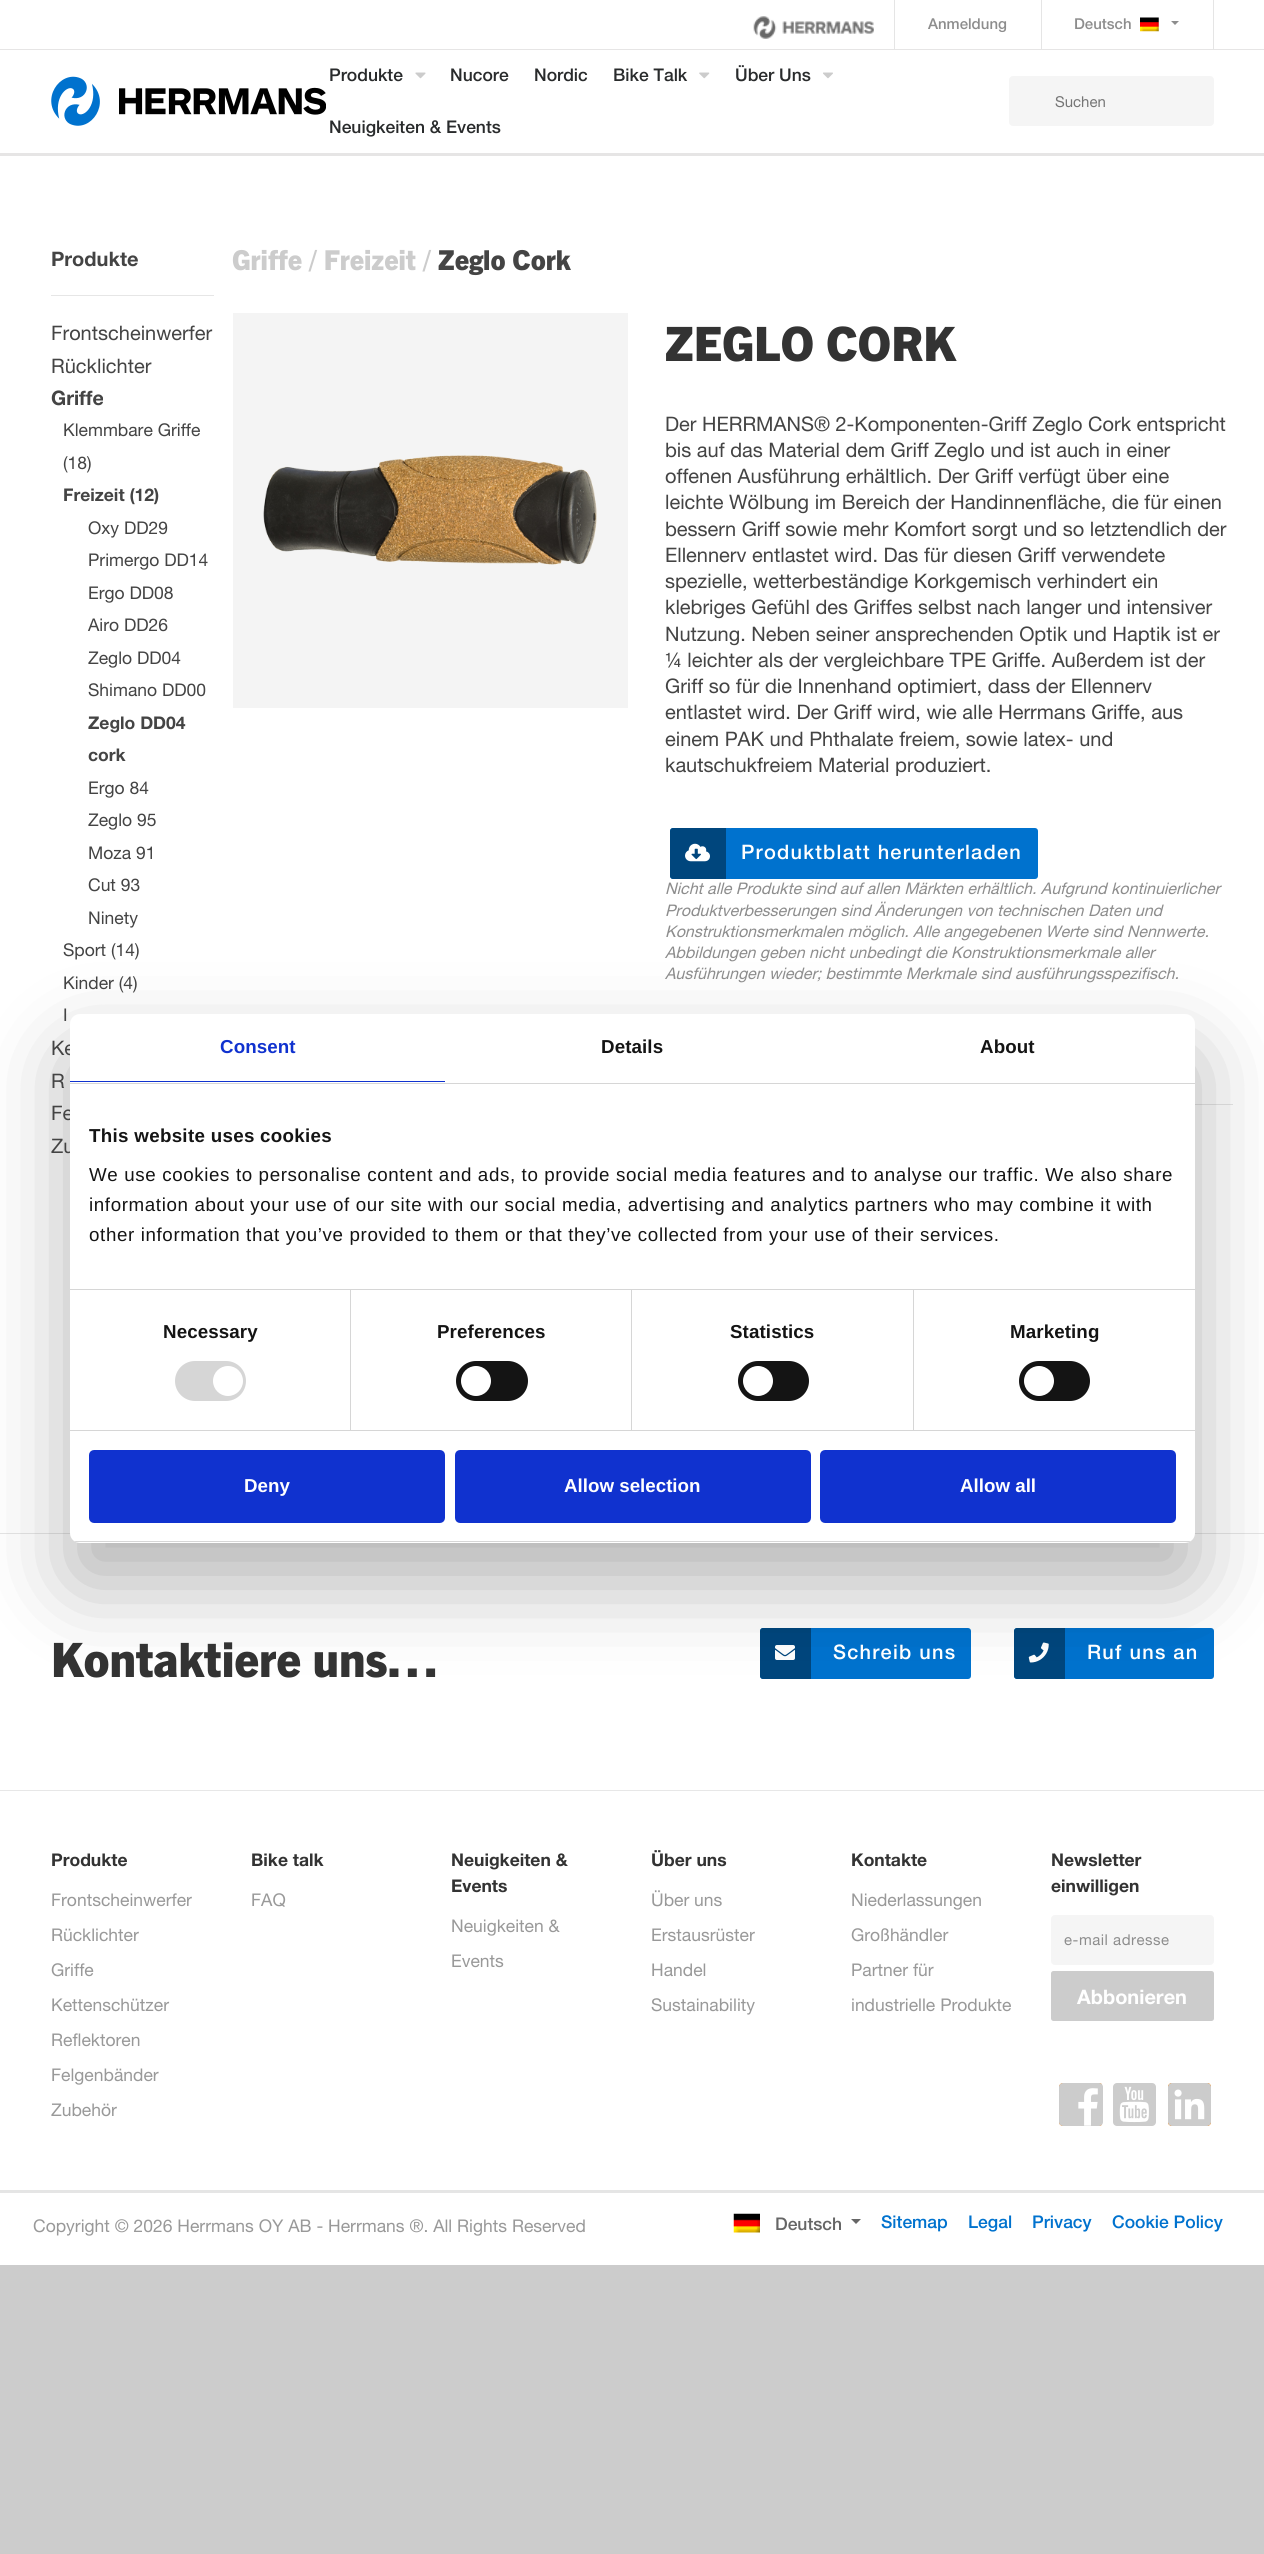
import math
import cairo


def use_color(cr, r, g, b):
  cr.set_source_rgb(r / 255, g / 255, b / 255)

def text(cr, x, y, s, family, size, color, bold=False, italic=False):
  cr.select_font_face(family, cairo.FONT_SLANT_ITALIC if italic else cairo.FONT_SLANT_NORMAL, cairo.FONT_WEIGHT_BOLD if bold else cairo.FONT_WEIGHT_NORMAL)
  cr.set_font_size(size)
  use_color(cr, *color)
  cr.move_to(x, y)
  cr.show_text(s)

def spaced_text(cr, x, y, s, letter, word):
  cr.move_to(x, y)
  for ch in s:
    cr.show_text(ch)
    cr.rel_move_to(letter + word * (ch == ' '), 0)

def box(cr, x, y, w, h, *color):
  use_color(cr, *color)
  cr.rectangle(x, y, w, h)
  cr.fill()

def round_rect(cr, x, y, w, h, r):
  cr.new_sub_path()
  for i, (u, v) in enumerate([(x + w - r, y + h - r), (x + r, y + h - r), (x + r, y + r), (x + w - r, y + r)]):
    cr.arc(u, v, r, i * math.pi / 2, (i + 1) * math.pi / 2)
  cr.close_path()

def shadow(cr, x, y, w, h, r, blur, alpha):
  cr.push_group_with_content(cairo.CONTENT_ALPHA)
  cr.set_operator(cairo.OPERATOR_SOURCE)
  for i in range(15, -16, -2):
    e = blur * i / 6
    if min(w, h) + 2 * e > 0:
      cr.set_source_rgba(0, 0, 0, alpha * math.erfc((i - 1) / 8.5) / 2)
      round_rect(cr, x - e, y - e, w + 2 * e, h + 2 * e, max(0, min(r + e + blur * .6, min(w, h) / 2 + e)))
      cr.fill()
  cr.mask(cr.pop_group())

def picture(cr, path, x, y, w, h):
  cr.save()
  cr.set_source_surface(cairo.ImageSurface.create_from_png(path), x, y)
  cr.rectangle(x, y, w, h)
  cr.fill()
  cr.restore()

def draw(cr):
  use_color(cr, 204, 204, 204)
  cr.paint()
  box(cr, 0, 0, 1264, 49, 255, 255, 255)
  box(cr, 0, 49, 1264, 1, 230, 229, 229)
  picture(cr, "img_01.png", 753, 16, 121, 23)
  box(cr, 894, 0, 1, 50, 229, 229, 229)
  box(cr, 1213, 0, 1, 50, 229, 229, 229)
  box(cr, 1041, 0, 1, 50, 229, 229, 229)
  picture(cr, "img_02.png", 1140, 17, 19, 15)
  use_color(cr, 141, 141, 141)
  cr.new_path()
  cr.move_to(1171, 21)
  cr.line_to(1179, 21)
  cr.line_to(1175, 25)
  cr.close_path()
  cr.fill()
  box(cr, 0, 50, 1264, 103, 255, 255, 255)
  box(cr, 0, 153, 1264, 3, 230, 229, 229)
  picture(cr, "img_03.png", 51, 76, 275, 50)
  picture(cr, "img_04.png", 415, 72, 11, 7)
  picture(cr, "img_05.png", 699, 72, 11, 7)
  picture(cr, "img_06.png", 823, 72, 10, 7)
  use_color(cr, 245, 245, 245)
  round_rect(cr, 1009, 76, 205, 50, 4)
  cr.fill()
  box(cr, 0, 156, 1264, 1377, 255, 255, 255)
  box(cr, 51, 295, 163, 1, 230, 230, 230)
  box(cr, 233, 313, 395, 395, 244, 244, 244)
  picture(cr, "img_07.png", 263, 455, 334, 110)
  use_color(cr, 0, 114, 206)
  round_rect(cr, 670, 828, 368, 51, 3)
  cr.fill()
  use_color(cr, 0, 70, 125)
  cr.new_path()
  cr.move_to(673, 828)
  cr.line_to(726, 828)
  cr.line_to(726, 879)
  cr.line_to(673, 879)
  cr.curve_to(671.5, 879, 670, 877.5, 670, 876)
  cr.line_to(670, 831)
  cr.curve_to(670, 829.5, 671.5, 828, 673, 828)
  cr.close_path()
  cr.fill()
  picture(cr, "img_08.png", 685, 843, 25, 19)
  box(cr, 1195, 1104, 38, 1, 229, 229, 229)
  box(cr, 0, 1534, 1264, 256, 255, 255, 255)
  box(cr, 0, 1533, 1264, 1, 229, 229, 229)
  use_color(cr, 0, 114, 206)
  round_rect(cr, 760, 1628, 211, 51, 3)
  cr.fill()
  use_color(cr, 0, 70, 125)
  cr.new_path()
  cr.move_to(763, 1628)
  cr.line_to(811, 1628)
  cr.line_to(811, 1679)
  cr.line_to(763, 1679)
  cr.curve_to(761.5, 1679, 760, 1677.5, 760, 1676)
  cr.line_to(760, 1631)
  cr.curve_to(760, 1629.5, 761.5, 1628, 763, 1628)
  cr.close_path()
  cr.fill()
  picture(cr, "img_09.png", 775, 1645, 20, 15)
  use_color(cr, 0, 114, 206)
  round_rect(cr, 1014, 1628, 200, 51, 3)
  cr.fill()
  use_color(cr, 0, 70, 125)
  cr.new_path()
  cr.move_to(1017, 1628)
  cr.line_to(1065, 1628)
  cr.line_to(1065, 1679)
  cr.line_to(1017, 1679)
  cr.curve_to(1015.5, 1679, 1014, 1677.5, 1014, 1676)
  cr.line_to(1014, 1631)
  cr.curve_to(1014, 1629.5, 1015.5, 1628, 1017, 1628)
  cr.close_path()
  cr.fill()
  picture(cr, "img_10.png", 1028, 1642, 21, 21)
  use_color(cr, 0, 0, 0)
  shadow(cr, 70, 1054, 1125, 529, 10, 42.5, 0.3)
  box(cr, 0, 1791, 1264, 474, 255, 255, 255)
  box(cr, 0, 1790, 1264, 1, 231, 231, 231)
  use_color(cr, 245, 245, 245)
  round_rect(cr, 1051, 1915, 163, 50, 4)
  cr.fill()
  use_color(cr, 204, 204, 204)
  round_rect(cr, 1051, 1971, 163, 50, 2.5)
  cr.fill()
  picture(cr, "img_11.png", 1059, 2083, 44, 43)
  picture(cr, "img_12.png", 1113, 2083, 43, 43)
  picture(cr, "img_13.png", 1168, 2083, 43, 43)
  box(cr, 0, 2190, 1264, 3, 229, 229, 229)
  picture(cr, "img_14.png", 733, 2213, 27, 20)
  use_color(cr, 102, 102, 102)
  cr.new_path()
  cr.move_to(851, 2219)
  cr.line_to(861, 2219)
  cr.line_to(856, 2224)
  cr.close_path()
  cr.fill()
  text(cr, 928, 29, "Anmeldung", "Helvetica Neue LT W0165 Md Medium", 15, (141, 141, 141))
  text(cr, 1074, 29, "Deutsch", "Helvetica Neue LT W0165 Md Medium", 15, (141, 141, 141))
  text(cr, 329, 81, "Produkte", "Helvetica Neue LT W0165 Md Medium", 17.5, (41, 43, 44))
  text(cr, 450, 81, "Nucore", "Helvetica Neue LT W0165 Md Medium", 17.5, (41, 43, 44))
  text(cr, 534, 81, "Nordic", "Helvetica Neue LT W0165 Md Medium", 17.5, (41, 43, 44))
  text(cr, 613, 81, "Bike Talk", "Helvetica Neue LT W0165 Md Medium", 17.5, (41, 43, 44))
  text(cr, 735, 81, "Über Uns", "Helvetica Neue LT W0165 Md Medium", 17.5, (41, 43, 44))
  text(cr, 329, 133, "Neuigkeiten & Events", "Helvetica Neue LT W0165 Md Medium", 17.5, (41, 43, 44))
  text(cr, 1055, 107, "Suchen", "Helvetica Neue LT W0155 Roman", 15, (117, 117, 117))
  text(cr, 51, 266, "Produkte", "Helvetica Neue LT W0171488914", 20, (68, 68, 68), bold=True)
  text(cr, 51, 340, "Frontscheinwerfer", "Helvetica Neue LT W0155 Roman", 20, (68, 68, 68))
  text(cr, 51, 373, "Rücklichter", "Helvetica Neue LT W0155 Roman", 20, (68, 68, 68))
  text(cr, 51, 405, "Griffe", "Helvetica Neue LT W0171488914", 20, (68, 68, 68), bold=True)
  text(cr, 63, 436, "Klemmbare Griffe", "Helvetica Neue LT W0155 Roman", 17.5, (68, 68, 68))
  text(cr, 63, 469, "(18)", "Helvetica Neue LT W0155 Roman", 17.5, (68, 68, 68))
  text(cr, 63, 501, "Freizeit (12)", "Helvetica Neue LT W0171488914", 17.5, (68, 68, 68), bold=True)
  text(cr, 88, 534, "Oxy DD29", "Helvetica Neue LT W0155 Roman", 17.5, (68, 68, 68))
  text(cr, 88, 566, "Primergo DD14", "Helvetica Neue LT W0155 Roman", 17.5, (68, 68, 68))
  text(cr, 88, 599, "Ergo DD08", "Helvetica Neue LT W0155 Roman", 17.5, (68, 68, 68))
  text(cr, 88, 631, "Airo DD26", "Helvetica Neue LT W0155 Roman", 17.5, (68, 68, 68))
  text(cr, 88, 664, "Zeglo DD04", "Helvetica Neue LT W0155 Roman", 17.5, (68, 68, 68))
  text(cr, 88, 696, "Shimano DD00", "Helvetica Neue LT W0155 Roman", 17.5, (68, 68, 68))
  text(cr, 88, 729, "Zeglo DD04", "Helvetica Neue LT W0171488914", 17.5, (68, 68, 68), bold=True)
  text(cr, 88, 761, "cork", "Helvetica Neue LT W0171488914", 17.5, (68, 68, 68), bold=True)
  text(cr, 88, 794, "Ergo 84", "Helvetica Neue LT W0155 Roman", 17.5, (68, 68, 68))
  text(cr, 88, 826, "Zeglo 95", "Helvetica Neue LT W0155 Roman", 17.5, (68, 68, 68))
  text(cr, 88, 859, "Moza 91", "Helvetica Neue LT W0155 Roman", 17.5, (68, 68, 68))
  text(cr, 88, 891, "Cut 93", "Helvetica Neue LT W0155 Roman", 17.5, (68, 68, 68))
  text(cr, 88, 924, "Ninety", "Helvetica Neue LT W0155 Roman", 17.5, (68, 68, 68))
  text(cr, 63, 956, "Sport (14)", "Helvetica Neue LT W0155 Roman", 17.5, (68, 68, 68))
  text(cr, 63, 989, "Kinder (4)", "Helvetica Neue LT W0155 Roman", 17.5, (68, 68, 68))
  text(cr, 63, 1021, "I", "Helvetica Neue LT W0155 Roman", 17.5, (68, 68, 68))
  text(cr, 51, 1055, "Ke", "Helvetica Neue LT W0155 Roman", 20, (68, 68, 68))
  text(cr, 51, 1088, "R", "Helvetica Neue LT W0155 Roman", 20, (68, 68, 68))
  text(cr, 51, 1120, "Fe", "Helvetica Neue LT W0155 Roman", 20, (68, 68, 68))
  text(cr, 51, 1153, "Zu", "Helvetica Neue LT W0155 Roman", 20, (68, 68, 68))
  text(cr, 232, 270, "Griffe / Freizeit /", "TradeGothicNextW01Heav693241 Black", 27.5, (204, 204, 204))
  text(cr, 438, 270, "Zeglo Cork", "TradeGothicNextW01Heav693241 Black", 27.5, (68, 68, 68))
  text(cr, 665, 361, "ZEGLO CORK", "TradeGothicNextW01Heav693241 Black", 47.5, (51, 51, 51))
  text(cr, 665, 431, "Der HERRMANS® 2-Komponenten-Griff Zeglo Cork entspricht", "Helvetica Neue LT W0155 Roman", 20, (68, 68, 68))
  text(cr, 665, 457, "bis auf das Material dem Griff Zeglo und ist auch in einer", "Helvetica Neue LT W0155 Roman", 20, (68, 68, 68))
  text(cr, 665, 483, "offenen Ausführung erhältlich. Der Griff verfügt über eine", "Helvetica Neue LT W0155 Roman", 20, (68, 68, 68))
  text(cr, 665, 509, "leichte Wölbung im Bereich der Handinnenfläche, die für einen", "Helvetica Neue LT W0155 Roman", 20, (68, 68, 68))
  text(cr, 665, 536, "bessern Griff sowie mehr Komfort sorgt und so letztendlich der", "Helvetica Neue LT W0155 Roman", 20, (68, 68, 68))
  text(cr, 665, 562, "Ellennerv entlastet wird. Das für diesen Griff verwendete", "Helvetica Neue LT W0155 Roman", 20, (68, 68, 68))
  text(cr, 665, 588, "spezielle, wetterbeständige Korkgemisch verhindert ein", "Helvetica Neue LT W0155 Roman", 20, (68, 68, 68))
  text(cr, 665, 614, "klebriges Gefühl des Griffes selbst nach langer und intensiver", "Helvetica Neue LT W0155 Roman", 20, (68, 68, 68))
  text(cr, 665, 641, "Nutzung. Neben seiner ansprechenden Optik und Haptik ist er", "Helvetica Neue LT W0155 Roman", 20, (68, 68, 68))
  text(cr, 665, 667, "¼ leichter als der vergleichbare TPE Griffe. Außerdem ist der", "Helvetica Neue LT W0155 Roman", 20, (68, 68, 68))
  text(cr, 665, 693, "Griff so für die Innenhand optimiert, dass der Ellennerv", "Helvetica Neue LT W0155 Roman", 20, (68, 68, 68))
  text(cr, 665, 719, "entlastet wird. Der Griff wird, wie alle Herrmans Griffe, aus", "Helvetica Neue LT W0155 Roman", 20, (68, 68, 68))
  text(cr, 665, 746, "einem PAK und Phthalate freiem, sowie latex- und", "Helvetica Neue LT W0155 Roman", 20, (68, 68, 68))
  text(cr, 665, 772, "kautschukfreiem Material produziert.", "Helvetica Neue LT W0155 Roman", 20, (68, 68, 68))
  cr.select_font_face("Helvetica Neue LT W0165 Md Medium")
  use_color(cr, 255, 255, 255)
  spaced_text(cr, 741, 859, "Produktblatt herunterladen", 1.25, 0)
  text(cr, 665, 894, "Nicht alle Produkte sind auf allen Märkten erhältlich. Aufgrund kontinuierlicher", "Helvetica Neue LT W0155 Roman", 16, (141, 141, 141), italic=True)
  text(cr, 665, 916, "Produktverbesserungen sind Änderungen von technischen Daten und", "Helvetica Neue LT W0155 Roman", 16, (141, 141, 141), italic=True)
  text(cr, 665, 937, "Konstruktionsmerkmalen möglich. Alle angegebenen Werte sind Nennwerte.", "Helvetica Neue LT W0155 Roman", 16, (141, 141, 141), italic=True)
  text(cr, 665, 958, "Abbildungen geben nicht unbedingt die Konstruktionsmerkmale aller", "Helvetica Neue LT W0155 Roman", 16, (141, 141, 141), italic=True)
  text(cr, 665, 979, "Ausführungen wieder; bestimmte Merkmale sind ausführungsspezifisch.", "Helvetica Neue LT W0155 Roman", 16, (141, 141, 141), italic=True)
  use_color(cr, 255, 255, 255)
  round_rect(cr, 70, 1014, 1125, 529, 10)
  cr.fill()
  box(cr, 70, 1083, 1125, 1, 214, 214, 214)
  box(cr, 70, 1081, 375, 1, 16, 50, 207)
  cr.select_font_face("Liberation Sans", cairo.FONT_SLANT_NORMAL, cairo.FONT_WEIGHT_BOLD)
  cr.set_font_size(18.75)
  spaced_text(cr, 220, 1053, "Consent", 0.1, 0)
  use_color(cr, 20, 20, 20)
  spaced_text(cr, 601, 1053, "Details", 0.1, 0)
  spaced_text(cr, 980, 1053, "About", 0.1, 0)
  box(cr, 70, 1289, 1125, 1, 214, 214, 214)
  use_color(cr, 20, 20, 20)
  spaced_text(cr, 89, 1142, "This website uses cookies", 0.3, 0)
  cr.select_font_face("Liberation Sans")
  spaced_text(cr, 89, 1181, "We use cookies to personalise content and ads, to provide social media features and to analyse our traffic. We also share", 0.62, 0)
  spaced_text(cr, 89, 1211, "information about your use of our site with our social media, advertising and analytics partners who may combine it with", 0.62, 0)
  spaced_text(cr, 89, 1241, "other information that you’ve provided to them or that they’ve collected from your use of their services.", 0.62, 0)
  box(cr, 70, 1430, 1125, 1, 214, 214, 214)
  box(cr, 350, 1290, 1, 140, 214, 214, 214)
  cr.select_font_face("Liberation Sans", cairo.FONT_SLANT_NORMAL, cairo.FONT_WEIGHT_BOLD)
  use_color(cr, 20, 20, 20)
  spaced_text(cr, 163, 1338, "Necessary", 0.1, 0)
  use_color(cr, 214, 214, 214)
  round_rect(cr, 175, 1361, 71, 40, 20)
  cr.fill()
  use_color(cr, 255, 255, 255)
  cr.arc(228, 1381, 15, 0, 2 * math.pi)
  cr.fill()
  box(cr, 631, 1290, 1, 140, 214, 214, 214)
  use_color(cr, 20, 20, 20)
  spaced_text(cr, 437, 1338, "Preferences", 0.1, 0)
  round_rect(cr, 456, 1361, 72, 40, 20)
  cr.fill()
  use_color(cr, 255, 255, 255)
  cr.arc(476, 1381, 15, 0, 2 * math.pi)
  cr.fill()
  box(cr, 913, 1290, 1, 140, 214, 214, 214)
  use_color(cr, 20, 20, 20)
  spaced_text(cr, 730, 1338, "Statistics", 0.1, 0)
  round_rect(cr, 738, 1361, 71, 40, 20)
  cr.fill()
  use_color(cr, 255, 255, 255)
  cr.arc(758, 1381, 15, 0, 2 * math.pi)
  cr.fill()
  use_color(cr, 20, 20, 20)
  spaced_text(cr, 1010, 1338, "Marketing", 0.1, 0)
  round_rect(cr, 1019, 1361, 71, 40, 20)
  cr.fill()
  use_color(cr, 255, 255, 255)
  cr.arc(1039, 1381, 15, 0, 2 * math.pi)
  cr.fill()
  cr.save()
  round_rect(cr, 70, 1014, 1125, 529, 10)
  cr.clip()
  box(cr, 70, 1541, 1125, 1, 214, 214, 214)
  cr.restore()
  use_color(cr, 16, 50, 207)
  round_rect(cr, 90.5, 1451.5, 353, 70, 3.5)
  cr.fill_preserve()
  cr.set_line_width(3)
  cr.stroke()
  text(cr, 244, 1492, "Deny", "Liberation Sans", 18.75, (255, 255, 255), bold=True)
  use_color(cr, 16, 50, 207)
  round_rect(cr, 456.5, 1451.5, 353, 70, 3.5)
  cr.fill_preserve()
  cr.stroke()
  text(cr, 564, 1492, "Allow selection", "Liberation Sans", 18.75, (255, 255, 255), bold=True)
  use_color(cr, 16, 50, 207)
  round_rect(cr, 821.5, 1451.5, 353, 70, 3.5)
  cr.fill_preserve()
  cr.stroke()
  text(cr, 960, 1492, "Allow all", "Liberation Sans", 18.75, (255, 255, 255), bold=True)
  text(cr, 51, 1677, "Kontaktiere uns…", "TradeGothicNextW01Heav693241 Black", 47.5, (51, 51, 51))
  cr.select_font_face("Helvetica Neue LT W0165 Md Medium")
  cr.set_font_size(20)
  use_color(cr, 255, 255, 255)
  spaced_text(cr, 833, 1659, "Schreib uns", 1.25, 0)
  spaced_text(cr, 1087, 1659, "Ruf uns an", 1.25, 0)
  text(cr, 51, 1866, "Produkte", "Helvetica Neue LT W0171488914", 17.5, (51, 51, 51), bold=True)
  text(cr, 51, 1906, "Frontscheinwerfer", "Helvetica Neue LT W0155 Roman", 17.5, (153, 153, 153))
  text(cr, 51, 1941, "Rücklichter", "Helvetica Neue LT W0155 Roman", 17.5, (153, 153, 153))
  text(cr, 51, 1976, "Griffe", "Helvetica Neue LT W0155 Roman", 17.5, (153, 153, 153))
  text(cr, 51, 2011, "Kettenschützer", "Helvetica Neue LT W0155 Roman", 17.5, (153, 153, 153))
  text(cr, 51, 2046, "Reflektoren", "Helvetica Neue LT W0155 Roman", 17.5, (153, 153, 153))
  text(cr, 51, 2081, "Felgenbänder", "Helvetica Neue LT W0155 Roman", 17.5, (153, 153, 153))
  text(cr, 51, 2116, "Zubehör", "Helvetica Neue LT W0155 Roman", 17.5, (153, 153, 153))
  text(cr, 251, 1866, "Bike talk", "Helvetica Neue LT W0171488914", 17.5, (51, 51, 51), bold=True)
  text(cr, 251, 1906, "FAQ", "Helvetica Neue LT W0155 Roman", 17.5, (153, 153, 153))
  text(cr, 451, 1866, "Neuigkeiten &", "Helvetica Neue LT W0171488914", 17.5, (51, 51, 51), bold=True)
  text(cr, 451, 1892, "Events", "Helvetica Neue LT W0171488914", 17.5, (51, 51, 51), bold=True)
  text(cr, 451, 1932, "Neuigkeiten &", "Helvetica Neue LT W0155 Roman", 17.5, (153, 153, 153))
  text(cr, 451, 1967, "Events", "Helvetica Neue LT W0155 Roman", 17.5, (153, 153, 153))
  text(cr, 651, 1866, "Über uns", "Helvetica Neue LT W0171488914", 17.5, (51, 51, 51), bold=True)
  text(cr, 651, 1906, "Über uns", "Helvetica Neue LT W0155 Roman", 17.5, (153, 153, 153))
  text(cr, 651, 1941, "Erstausrüster", "Helvetica Neue LT W0155 Roman", 17.5, (153, 153, 153))
  text(cr, 651, 1976, "Handel", "Helvetica Neue LT W0155 Roman", 17.5, (153, 153, 153))
  text(cr, 651, 2011, "Sustainability", "Helvetica Neue LT W0155 Roman", 17.5, (153, 153, 153))
  text(cr, 851, 1866, "Kontakte", "Helvetica Neue LT W0171488914", 17.5, (51, 51, 51), bold=True)
  text(cr, 851, 1906, "Niederlassungen", "Helvetica Neue LT W0155 Roman", 17.5, (153, 153, 153))
  text(cr, 851, 1941, "Großhändler", "Helvetica Neue LT W0155 Roman", 17.5, (153, 153, 153))
  text(cr, 851, 1976, "Partner für", "Helvetica Neue LT W0155 Roman", 17.5, (153, 153, 153))
  text(cr, 851, 2011, "industrielle Produkte", "Helvetica Neue LT W0155 Roman", 17.5, (153, 153, 153))
  text(cr, 1051, 1866, "Newsletter", "Helvetica Neue LT W0171488914", 17.5, (51, 51, 51), bold=True)
  text(cr, 1051, 1892, "einwilligen", "Helvetica Neue LT W0171488914", 17.5, (51, 51, 51), bold=True)
  cr.select_font_face("Helvetica Neue LT W0155 Roman")
  cr.set_font_size(15)
  use_color(cr, 141, 141, 141)
  spaced_text(cr, 1064, 1945, "e-mail adresse", 0.5, 0)
  text(cr, 1077, 2004, "Abbonieren", "Helvetica Neue LT W0171488914", 20, (255, 255, 255), bold=True)
  text(cr, 33, 2232, "Copyright © 2026 Herrmans OY AB - Herrmans ®. All Rights Reserved", "Helvetica Neue LT W0155 Roman", 17.5, (153, 153, 153))
  text(cr, 775, 2230, "Deutsch", "Helvetica Neue LT W0165 Md Medium", 17.5, (102, 102, 102))
  text(cr, 881, 2228, "Sitemap", "Helvetica Neue LT W0165 Md Medium", 17.5, (0, 114, 206))
  text(cr, 968, 2228, "Legal", "Helvetica Neue LT W0165 Md Medium", 17.5, (0, 114, 206))
  text(cr, 1032, 2228, "Privacy", "Helvetica Neue LT W0165 Md Medium", 17.5, (0, 114, 206))
  text(cr, 1112, 2228, "Cookie Policy", "Helvetica Neue LT W0165 Md Medium", 17.5, (0, 114, 206))


surface = cairo.ImageSurface(cairo.FORMAT_RGB24, 1264, 2554)
cr = cairo.Context(surface)
options = cairo.FontOptions()
options.set_hint_metrics(cairo.HINT_METRICS_OFF)
options.set_hint_style(cairo.HINT_STYLE_NONE)
cr.set_font_options(options)
cr.set_miter_limit(4)
draw(cr)
surface.write_to_png("out.png")
